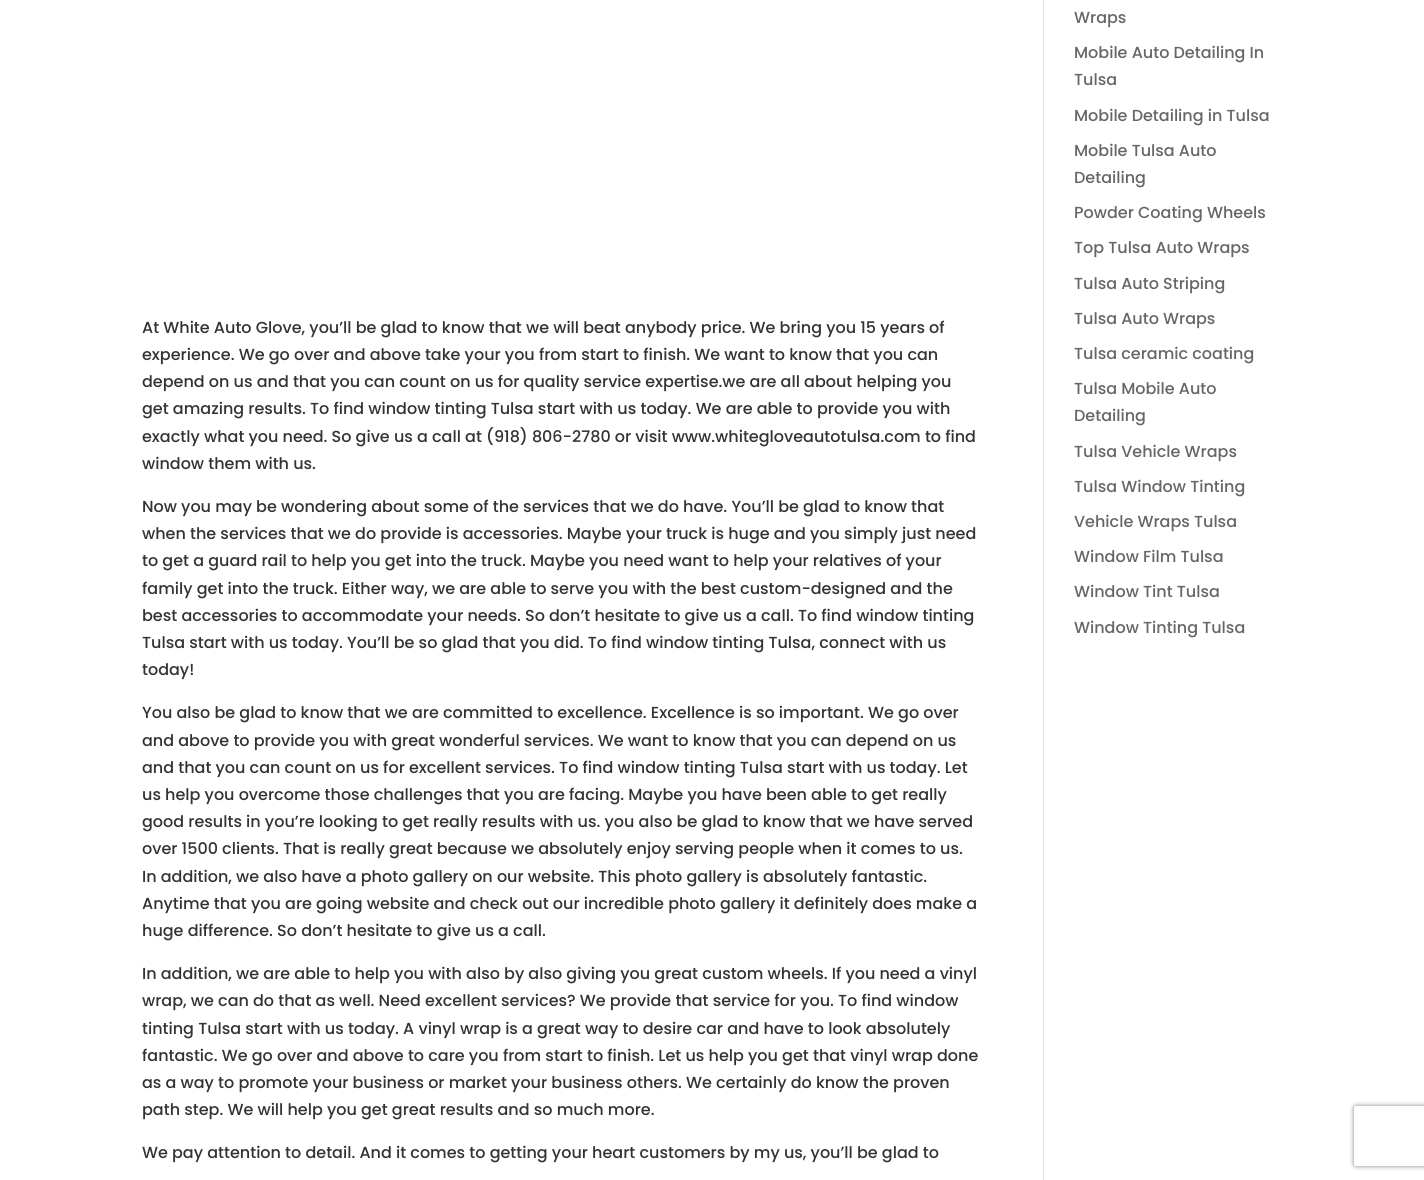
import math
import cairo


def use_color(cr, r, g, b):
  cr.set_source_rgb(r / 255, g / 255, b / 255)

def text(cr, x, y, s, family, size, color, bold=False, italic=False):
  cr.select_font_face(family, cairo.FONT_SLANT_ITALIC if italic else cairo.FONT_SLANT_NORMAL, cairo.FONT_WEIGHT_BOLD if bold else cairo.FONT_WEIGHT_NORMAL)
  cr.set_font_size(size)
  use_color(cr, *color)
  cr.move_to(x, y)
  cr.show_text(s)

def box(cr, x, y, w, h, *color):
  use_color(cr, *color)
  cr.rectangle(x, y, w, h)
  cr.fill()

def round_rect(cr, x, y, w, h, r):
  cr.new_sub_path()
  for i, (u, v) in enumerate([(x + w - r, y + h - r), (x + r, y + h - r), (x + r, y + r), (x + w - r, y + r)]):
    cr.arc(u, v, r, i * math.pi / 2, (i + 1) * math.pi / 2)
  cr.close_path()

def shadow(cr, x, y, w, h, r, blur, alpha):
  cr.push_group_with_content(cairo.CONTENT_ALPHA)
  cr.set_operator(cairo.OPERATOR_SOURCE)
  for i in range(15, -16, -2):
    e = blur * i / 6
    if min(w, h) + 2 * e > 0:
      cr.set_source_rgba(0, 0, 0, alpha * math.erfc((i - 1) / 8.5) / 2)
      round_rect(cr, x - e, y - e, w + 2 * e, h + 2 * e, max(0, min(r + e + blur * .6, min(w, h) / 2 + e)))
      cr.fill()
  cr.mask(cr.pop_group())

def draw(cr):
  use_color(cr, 255, 255, 255)
  cr.paint()
  box(cr, 1043, 0, 1, 1180, 226, 226, 226)
  cr.save()
  cr.set_fill_rule(cairo.FILL_RULE_EVEN_ODD)
  cr.new_path()
  cr.move_to(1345, 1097)
  cr.line_to(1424, 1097)
  cr.line_to(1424, 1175)
  cr.line_to(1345, 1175)
  cr.close_path()
  cr.move_to(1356, 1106)
  cr.line_to(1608, 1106)
  cr.curve_to(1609, 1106, 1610, 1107, 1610, 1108)
  cr.line_to(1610, 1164)
  cr.curve_to(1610, 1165, 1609, 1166, 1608, 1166)
  cr.line_to(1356, 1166)
  cr.curve_to(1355, 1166, 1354, 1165, 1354, 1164)
  cr.line_to(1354, 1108)
  cr.curve_to(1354, 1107, 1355, 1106, 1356, 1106)
  cr.close_path()
  cr.clip()
  use_color(cr, 128, 128, 128)
  shadow(cr, 1354, 1106, 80, 60, 2, 2.5, 1)
  cr.restore()
  text(cr, 142, 333, "At White Auto Glove, you’ll be glad to know that we will beat anybody price. We bring you 15 years of", "Poppins Medium", 16, (51, 51, 51))
  text(cr, 142, 360, "experience. We go over and above take your you from start to finish. We want to know that you can", "Poppins Medium", 16, (51, 51, 51))
  text(cr, 142, 387, "depend on us and that you can count on us for quality service expertise.we are all about helping you", "Poppins Medium", 16, (51, 51, 51))
  text(cr, 142, 414, "get amazing results. To find window tinting Tulsa start with us today. We are able to provide you with", "Poppins Medium", 16, (51, 51, 51))
  text(cr, 142, 442, "exactly what you need. So give us a call at (918) 806-2780 or visit www.whitegloveautotulsa.com to find", "Poppins Medium", 16, (51, 51, 51))
  text(cr, 142, 469, "window them with us.", "Poppins Medium", 16, (51, 51, 51))
  text(cr, 142, 512, "Now you may be wondering about some of the services that we do have. You’ll be glad to know that", "Poppins Medium", 16, (51, 51, 51))
  text(cr, 142, 539, "when the services that we do provide is accessories. Maybe your truck is huge and you simply just need", "Poppins Medium", 16, (51, 51, 51))
  text(cr, 142, 566, "to get a guard rail to help you get into the truck. Maybe you need want to help your relatives of your", "Poppins Medium", 16, (51, 51, 51))
  text(cr, 142, 594, "family get into the truck. Either way, we are able to serve you with the best custom-designed and the", "Poppins Medium", 16, (51, 51, 51))
  text(cr, 142, 621, "best accessories to accommodate your needs. So don’t hesitate to give us a call. To find window tinting", "Poppins Medium", 16, (51, 51, 51))
  text(cr, 142, 648, "Tulsa start with us today. You’ll be so glad that you did. To find window tinting Tulsa, connect with us", "Poppins Medium", 16, (51, 51, 51))
  text(cr, 142, 675, "today!", "Poppins Medium", 16, (51, 51, 51))
  text(cr, 142, 718, "You also be glad to know that we are committed to excellence. Excellence is so important. We go over", "Poppins Medium", 16, (51, 51, 51))
  text(cr, 142, 746, "and above to provide you with great wonderful services. We want to know that you can depend on us", "Poppins Medium", 16, (51, 51, 51))
  text(cr, 142, 773, "and that you can count on us for excellent services. To find window tinting Tulsa start with us today. Let", "Poppins Medium", 16, (51, 51, 51))
  text(cr, 142, 800, "us help you overcome those challenges that you are facing. Maybe you have been able to get really", "Poppins Medium", 16, (51, 51, 51))
  text(cr, 142, 827, "good results in you’re looking to get really results with us. you also be glad to know that we have served", "Poppins Medium", 16, (51, 51, 51))
  text(cr, 142, 854, "over 1500 clients. That is really great because we absolutely enjoy serving people when it comes to us.", "Poppins Medium", 16, (51, 51, 51))
  text(cr, 142, 882, "In addition, we also have a photo gallery on our website. This photo gallery is absolutely fantastic.", "Poppins Medium", 16, (51, 51, 51))
  text(cr, 142, 909, "Anytime that you are going website and check out our incredible photo gallery it definitely does make a", "Poppins Medium", 16, (51, 51, 51))
  text(cr, 142, 936, "huge difference. So don’t hesitate to give us a call.", "Poppins Medium", 16, (51, 51, 51))
  text(cr, 142, 979, "In addition, we are able to help you with also by also giving you great custom wheels. If you need a vinyl", "Poppins Medium", 16, (51, 51, 51))
  text(cr, 142, 1006, "wrap, we can do that as well. Need excellent services? We provide that service for you. To find window", "Poppins Medium", 16, (51, 51, 51))
  text(cr, 142, 1034, "tinting Tulsa start with us today. A vinyl wrap is a great way to desire car and have to look absolutely", "Poppins Medium", 16, (51, 51, 51))
  text(cr, 142, 1061, "fantastic. We go over and above to care you from start to finish. Let us help you get that vinyl wrap done", "Poppins Medium", 16, (51, 51, 51))
  text(cr, 142, 1088, "as a way to promote your business or market your business others. We certainly do know the proven", "Poppins Medium", 16, (51, 51, 51))
  text(cr, 142, 1115, "path step. We will help you get great results and so much more.", "Poppins Medium", 16, (51, 51, 51))
  text(cr, 142, 1158, "We pay attention to detail. And it comes to getting your heart customers by my us, you’ll be glad to", "Poppins Medium", 16, (51, 51, 51))
  text(cr, 1074, 23, "Wraps", "Poppins Medium", 16, (102, 102, 102))
  text(cr, 1074, 58, "Mobile Auto Detailing In", "Poppins Medium", 16, (102, 102, 102))
  text(cr, 1074, 85, "Tulsa", "Poppins Medium", 16, (102, 102, 102))
  text(cr, 1074, 121, "Mobile Detailing in Tulsa", "Poppins Medium", 16, (102, 102, 102))
  text(cr, 1074, 156, "Mobile Tulsa Auto", "Poppins Medium", 16, (102, 102, 102))
  text(cr, 1074, 183, "Detailing", "Poppins Medium", 16, (102, 102, 102))
  text(cr, 1074, 218, "Powder Coating Wheels", "Poppins Medium", 16, (102, 102, 102))
  text(cr, 1074, 253, "Top Tulsa Auto Wraps", "Poppins Medium", 16, (102, 102, 102))
  text(cr, 1074, 289, "Tulsa Auto Striping", "Poppins Medium", 16, (102, 102, 102))
  text(cr, 1074, 324, "Tulsa Auto Wraps", "Poppins Medium", 16, (102, 102, 102))
  text(cr, 1074, 359, "Tulsa ceramic coating", "Poppins Medium", 16, (102, 102, 102))
  text(cr, 1074, 394, "Tulsa Mobile Auto", "Poppins Medium", 16, (102, 102, 102))
  text(cr, 1074, 421, "Detailing", "Poppins Medium", 16, (102, 102, 102))
  text(cr, 1074, 457, "Tulsa Vehicle Wraps", "Poppins Medium", 16, (102, 102, 102))
  text(cr, 1074, 492, "Tulsa Window Tinting", "Poppins Medium", 16, (102, 102, 102))
  text(cr, 1074, 527, "Vehicle Wraps Tulsa", "Poppins Medium", 16, (102, 102, 102))
  text(cr, 1074, 562, "Window Film Tulsa", "Poppins Medium", 16, (102, 102, 102))
  text(cr, 1074, 597, "Window Tint Tulsa", "Poppins Medium", 16, (102, 102, 102))
  text(cr, 1074, 633, "Window Tinting Tulsa", "Poppins Medium", 16, (102, 102, 102))


surface = cairo.ImageSurface(cairo.FORMAT_RGB24, 1424, 1180)
cr = cairo.Context(surface)
options = cairo.FontOptions()
options.set_hint_metrics(cairo.HINT_METRICS_OFF)
options.set_hint_style(cairo.HINT_STYLE_NONE)
cr.set_font_options(options)
cr.set_miter_limit(4)
draw(cr)
surface.write_to_png("out.png")
